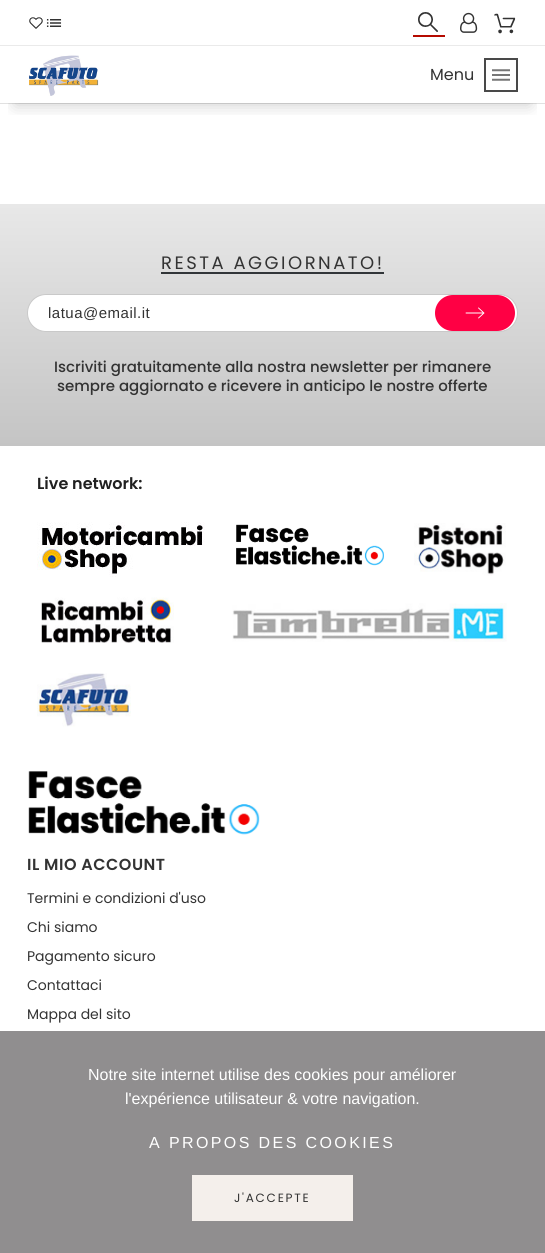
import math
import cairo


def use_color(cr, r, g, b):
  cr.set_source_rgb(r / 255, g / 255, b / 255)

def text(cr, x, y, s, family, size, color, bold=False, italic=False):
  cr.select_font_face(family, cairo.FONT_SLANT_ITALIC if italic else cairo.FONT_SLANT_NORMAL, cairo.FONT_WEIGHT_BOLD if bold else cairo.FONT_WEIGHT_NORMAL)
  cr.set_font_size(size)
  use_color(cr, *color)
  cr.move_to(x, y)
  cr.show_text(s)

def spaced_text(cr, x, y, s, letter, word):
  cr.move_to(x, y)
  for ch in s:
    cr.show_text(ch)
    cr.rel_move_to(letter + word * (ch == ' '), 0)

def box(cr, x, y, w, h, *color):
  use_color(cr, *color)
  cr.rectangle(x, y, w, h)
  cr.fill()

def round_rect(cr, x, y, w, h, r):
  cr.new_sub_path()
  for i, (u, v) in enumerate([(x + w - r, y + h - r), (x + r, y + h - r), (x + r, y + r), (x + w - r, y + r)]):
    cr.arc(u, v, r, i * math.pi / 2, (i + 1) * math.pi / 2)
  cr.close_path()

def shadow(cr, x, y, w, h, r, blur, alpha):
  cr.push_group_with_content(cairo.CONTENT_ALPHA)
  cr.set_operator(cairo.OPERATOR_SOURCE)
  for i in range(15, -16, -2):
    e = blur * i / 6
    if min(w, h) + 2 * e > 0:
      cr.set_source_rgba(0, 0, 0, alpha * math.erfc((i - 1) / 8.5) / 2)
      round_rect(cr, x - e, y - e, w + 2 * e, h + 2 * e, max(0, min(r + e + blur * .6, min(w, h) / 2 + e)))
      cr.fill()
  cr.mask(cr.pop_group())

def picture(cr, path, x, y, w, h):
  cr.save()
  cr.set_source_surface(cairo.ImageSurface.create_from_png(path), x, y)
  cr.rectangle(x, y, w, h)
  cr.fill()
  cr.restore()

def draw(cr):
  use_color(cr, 255, 255, 255)
  cr.paint()
  box(cr, 0, 103, 545, 1, 225, 225, 225)
  box(cr, 0, 45, 545, 1, 234, 234, 234)
  picture(cr, "img_01.png", 29, 17, 14, 12)
  picture(cr, "img_02.png", 46, 19, 16, 8)
  picture(cr, "img_03.png", 418, 12, 20, 20)
  box(cr, 413, 35, 32, 2, 181, 10, 0)
  picture(cr, "img_04.png", 460, 12, 18, 21)
  picture(cr, "img_05.png", 494, 13, 22, 21)
  cr.save()
  cr.rectangle(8, 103, 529, 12)
  cr.clip()
  use_color(cr, 0, 0, 0)
  shadow(cr, 15, 78, 515, 27, 0, 8, 0.2)
  cr.restore()
  picture(cr, "img_06.png", 29, 55, 70, 41)
  cr.rectangle(485, 59, 32, 32)
  use_color(cr, 73, 73, 73)
  cr.stroke()
  picture(cr, "img_07.png", 492, 69, 18, 12)
  gradient = cairo.LinearGradient(273, 204, 273, 446)
  gradient.add_color_stop_rgba(0, 0.91, 0.91, 0.91, 1)
  gradient.add_color_stop_rgba(1, 0.769, 0.769, 0.769, 1)
  cr.set_source(gradient)
  cr.rectangle(0, 204, 545, 242)
  cr.fill()
  box(cr, 161, 272, 223, 2, 49, 53, 56)
  use_color(cr, 255, 255, 255)
  round_rect(cr, 27.5, 294.5, 490, 37, 18.5)
  cr.fill_preserve()
  use_color(cr, 201, 201, 201)
  cr.set_line_width(1)
  cr.stroke()
  use_color(cr, 255, 0, 68)
  round_rect(cr, 435, 295, 80, 36, 18)
  cr.fill()
  picture(cr, "img_08.png", 465, 307, 20, 12)
  picture(cr, "img_09.png", 37, 522, 168, 55)
  picture(cr, "img_10.png", 236, 524, 148, 42)
  picture(cr, "img_11.png", 414, 523, 92, 53)
  picture(cr, "img_12.png", 41, 597, 133, 46)
  picture(cr, "img_13.png", 232, 603, 275, 39)
  picture(cr, "img_14.png", 37, 673, 94, 54)
  picture(cr, "img_15.png", 28, 771, 232, 64)
  box(cr, 0, 1031, 545, 222, 144, 142, 143)
  box(cr, 192, 1175, 161, 46, 244, 239, 235)
  text(cr, 430, 80, "Menu", "Poppins", 16, (51, 51, 51))
  cr.set_font_size(18)
  spaced_text(cr, 161, 269, "RESTA AGGIORNATO!", 2.5, 0)
  cr.select_font_face("Liberation Sans")
  cr.set_font_size(15)
  spaced_text(cr, 48, 318, "latua@email.it", 0.5, 0)
  text(cr, 54, 372, "Iscriviti gratuitamente alla nostra newsletter per rimanere", "Poppins Medium", 15, (51, 51, 51))
  text(cr, 57, 391, "sempre aggiornato e ricevere in anticipo le nostre offerte", "Poppins Medium", 15, (51, 51, 51))
  text(cr, 37, 489, "Live network:", "Poppins SemiBold", 16, (32, 32, 32))
  use_color(cr, 51, 51, 51)
  spaced_text(cr, 27, 870, "IL MIO ACCOUNT", 0.5, 0)
  text(cr, 27, 903, "Termini e condizioni d'uso", "Poppins", 14, (51, 51, 51))
  text(cr, 27, 932, "Chi siamo", "Poppins", 14, (51, 51, 51))
  text(cr, 27, 961, "Pagamento sicuro", "Poppins", 14, (51, 51, 51))
  text(cr, 27, 990, "Contattaci", "Poppins", 14, (51, 51, 51))
  text(cr, 27, 1019, "Mappa del sito", "Poppins", 14, (51, 51, 51))
  text(cr, 88, 1080, "Notre site internet utilise des cookies pour améliorer", "Liberation Sans", 16, (255, 255, 255))
  text(cr, 125, 1104, "l'expérience utilisateur & votre navigation.", "Liberation Sans", 16, (255, 255, 255))
  spaced_text(cr, 149, 1148, "A PROPOS DES COOKIES", 2.4, 0)
  cr.select_font_face("Poppins")
  cr.set_font_size(12)
  use_color(cr, 51, 51, 51)
  spaced_text(cr, 234, 1202, "J'ACCEPTE", 1.75, 0)


surface = cairo.ImageSurface(cairo.FORMAT_RGB24, 545, 1253)
cr = cairo.Context(surface)
options = cairo.FontOptions()
options.set_hint_metrics(cairo.HINT_METRICS_OFF)
options.set_hint_style(cairo.HINT_STYLE_NONE)
cr.set_font_options(options)
cr.set_miter_limit(4)
draw(cr)
surface.write_to_png("out.png")
